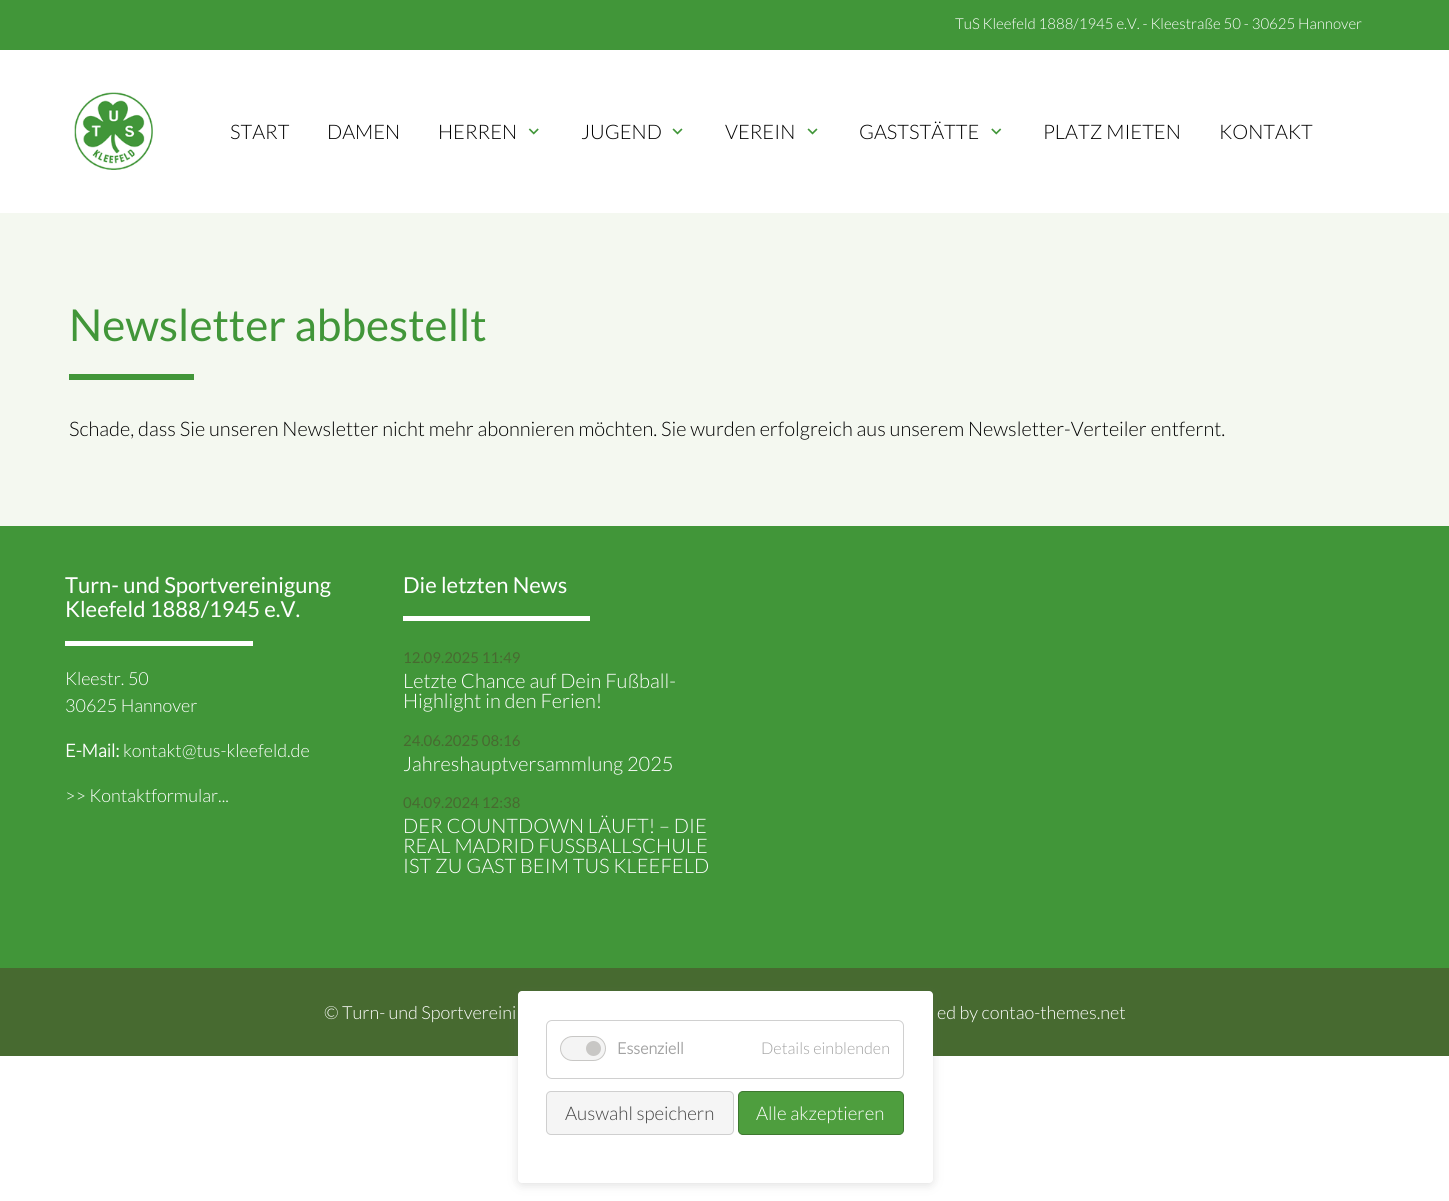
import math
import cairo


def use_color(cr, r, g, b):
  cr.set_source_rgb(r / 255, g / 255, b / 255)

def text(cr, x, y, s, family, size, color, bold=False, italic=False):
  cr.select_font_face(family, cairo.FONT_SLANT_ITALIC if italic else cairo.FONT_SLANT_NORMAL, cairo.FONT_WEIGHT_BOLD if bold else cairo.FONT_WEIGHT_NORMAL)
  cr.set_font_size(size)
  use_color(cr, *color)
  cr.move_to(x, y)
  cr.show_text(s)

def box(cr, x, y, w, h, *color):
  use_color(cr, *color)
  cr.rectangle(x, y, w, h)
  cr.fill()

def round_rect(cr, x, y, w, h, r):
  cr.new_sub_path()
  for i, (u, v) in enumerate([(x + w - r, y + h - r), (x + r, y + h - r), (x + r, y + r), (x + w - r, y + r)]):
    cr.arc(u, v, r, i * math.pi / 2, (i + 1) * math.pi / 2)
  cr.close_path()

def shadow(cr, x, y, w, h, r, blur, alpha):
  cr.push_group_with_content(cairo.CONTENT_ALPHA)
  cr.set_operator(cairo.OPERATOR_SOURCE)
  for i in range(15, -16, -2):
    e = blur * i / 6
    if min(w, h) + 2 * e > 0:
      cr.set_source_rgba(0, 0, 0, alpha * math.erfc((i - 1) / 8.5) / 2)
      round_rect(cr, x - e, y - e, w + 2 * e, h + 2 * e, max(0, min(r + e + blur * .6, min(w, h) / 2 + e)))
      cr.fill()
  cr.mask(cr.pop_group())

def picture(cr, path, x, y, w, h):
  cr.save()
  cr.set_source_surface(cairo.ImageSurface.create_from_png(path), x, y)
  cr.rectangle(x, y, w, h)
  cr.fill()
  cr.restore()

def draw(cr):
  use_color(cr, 255, 255, 255)
  cr.paint()
  box(cr, 0, 213, 1449, 313, 244, 248, 240)
  box(cr, 0, 0, 1449, 50, 65, 150, 57)
  picture(cr, "img_01.png", 74, 92, 79, 78)
  picture(cr, "img_02.png", 528, 128, 11, 7)
  picture(cr, "img_03.png", 672, 128, 11, 7)
  picture(cr, "img_03.png", 807, 128, 11, 7)
  picture(cr, "img_04.png", 991, 128, 11, 7)
  box(cr, 69, 374, 125, 6, 65, 150, 57)
  box(cr, 0, 526, 1449, 442, 65, 150, 57)
  box(cr, 65, 641, 188, 5, 255, 255, 255)
  box(cr, 403, 616, 187, 5, 255, 255, 255)
  box(cr, 0, 968, 1449, 88, 71, 106, 48)
  use_color(cr, 99, 99, 99)
  shadow(cr, 518, 994, 415, 191, 4, 5, 0.2)
  use_color(cr, 255, 255, 255)
  round_rect(cr, 518, 991, 415, 192, 4)
  cr.fill()
  round_rect(cr, 546.5, 1020.5, 357, 58, 5.5)
  use_color(cr, 208, 208, 208)
  cr.set_line_width(1)
  cr.stroke()
  use_color(cr, 244, 244, 244)
  round_rect(cr, 560.5, 1036.5, 45, 24, 12)
  cr.fill_preserve()
  use_color(cr, 200, 199, 197)
  cr.stroke()
  cr.arc(593.5, 1048.5, 7.5, 0, 2 * math.pi)
  cr.fill()
  use_color(cr, 245, 245, 245)
  round_rect(cr, 546.5, 1091.5, 187, 43, 4.5)
  cr.fill_preserve()
  use_color(cr, 207, 207, 207)
  cr.stroke()
  use_color(cr, 78, 158, 62)
  round_rect(cr, 738.5, 1091.5, 165, 43, 4.5)
  cr.fill_preserve()
  use_color(cr, 62, 120, 48)
  cr.stroke()
  text(cr, 955, 29, "TuS Kleefeld 1888/1945 e.V. - Kleestraße 50 - 30625 Hannover", "Lato Light", 15, (255, 255, 255))
  text(cr, 230, 139, "START", "Lato Light", 20, (0, 0, 0))
  text(cr, 327, 139, "DAMEN", "Lato Light", 20, (0, 0, 0))
  text(cr, 438, 139, "HERREN", "Lato Light", 20, (0, 0, 0))
  text(cr, 581, 139, "JUGEND", "Lato Light", 20, (0, 0, 0))
  text(cr, 725, 139, "VEREIN", "Lato Light", 20, (0, 0, 0))
  text(cr, 859, 139, "GASTSTÄTTE", "Lato Light", 20, (0, 0, 0))
  text(cr, 1043, 139, "PLATZ MIETEN", "Lato Light", 20, (0, 0, 0))
  text(cr, 1219, 139, "KONTAKT", "Lato Light", 20, (0, 0, 0))
  text(cr, 69, 341, "Newsletter abbestellt", "Lato", 44, (65, 150, 57))
  text(cr, 69, 436, "Schade, dass Sie unseren Newsletter nicht mehr abonnieren möchten. Sie wurden erfolgreich aus unserem Newsletter-Verteiler entfernt.", "Lato Light", 20, (0, 0, 0))
  text(cr, 65, 593, "Turn- und Sportvereinigung", "Lato", 22, (255, 255, 255))
  text(cr, 65, 617, "Kleefeld 1888/1945 e.V.", "Lato", 22, (255, 255, 255))
  text(cr, 65, 685, "Kleestr. 50", "Lato Light", 18, (255, 255, 255))
  text(cr, 65, 712, "30625 Hannover", "Lato Light", 18, (255, 255, 255))
  text(cr, 65, 757, "E-Mail:", "Lato", 18, (255, 255, 255), bold=True)
  text(cr, 123, 757, "kontakt@tus-kleefeld.de", "Lato Light", 18, (255, 255, 255))
  text(cr, 65, 802, ">> Kontaktformular...", "Lato Light", 18, (255, 255, 255))
  text(cr, 403, 593, "Die letzten News", "Lato", 22, (255, 255, 255))
  text(cr, 403, 663, "12.09.2025 11:49", "Lato", 15, (71, 106, 48))
  text(cr, 403, 688, "Letzte Chance auf Dein Fußball-", "Lato Light", 20, (255, 255, 255))
  text(cr, 403, 708, "Highlight in den Ferien!", "Lato Light", 20, (255, 255, 255))
  text(cr, 403, 746, "24.06.2025 08:16", "Lato", 15, (71, 106, 48))
  text(cr, 403, 771, "Jahreshauptversammlung 2025", "Lato Light", 20, (255, 255, 255))
  text(cr, 403, 808, "04.09.2024 12:38", "Lato", 15, (71, 106, 48))
  text(cr, 403, 833, "DER COUNTDOWN LÄUFT! – DIE", "Lato Light", 20, (255, 255, 255))
  text(cr, 403, 853, "REAL MADRID FUSSBALLSCHULE", "Lato Light", 20, (255, 255, 255))
  text(cr, 403, 873, "IST ZU GAST BEIM TUS KLEEFELD", "Lato Light", 20, (255, 255, 255))
  text(cr, 324, 1019, "© Turn- und Sportvereini", "Lato Light", 18, (255, 255, 255))
  text(cr, 937, 1019, "ed by contao-themes.net", "Lato Light", 18, (255, 255, 255))
  text(cr, 617, 1054, "Essenziell", "Lato", 16, (162, 162, 162), bold=True)
  text(cr, 761, 1054, "Details einblenden", "Lato Light", 16.25, (162, 162, 162))
  text(cr, 565, 1120, "Auswahl speichern", "Lato Light", 18.75, (68, 68, 68))
  text(cr, 756, 1120, "Alle akzeptieren", "Lato Light", 18.75, (255, 255, 255))


surface = cairo.ImageSurface(cairo.FORMAT_RGB24, 1449, 1201)
cr = cairo.Context(surface)
options = cairo.FontOptions()
options.set_hint_metrics(cairo.HINT_METRICS_OFF)
options.set_hint_style(cairo.HINT_STYLE_NONE)
cr.set_font_options(options)
cr.set_miter_limit(4)
draw(cr)
surface.write_to_png("out.png")
